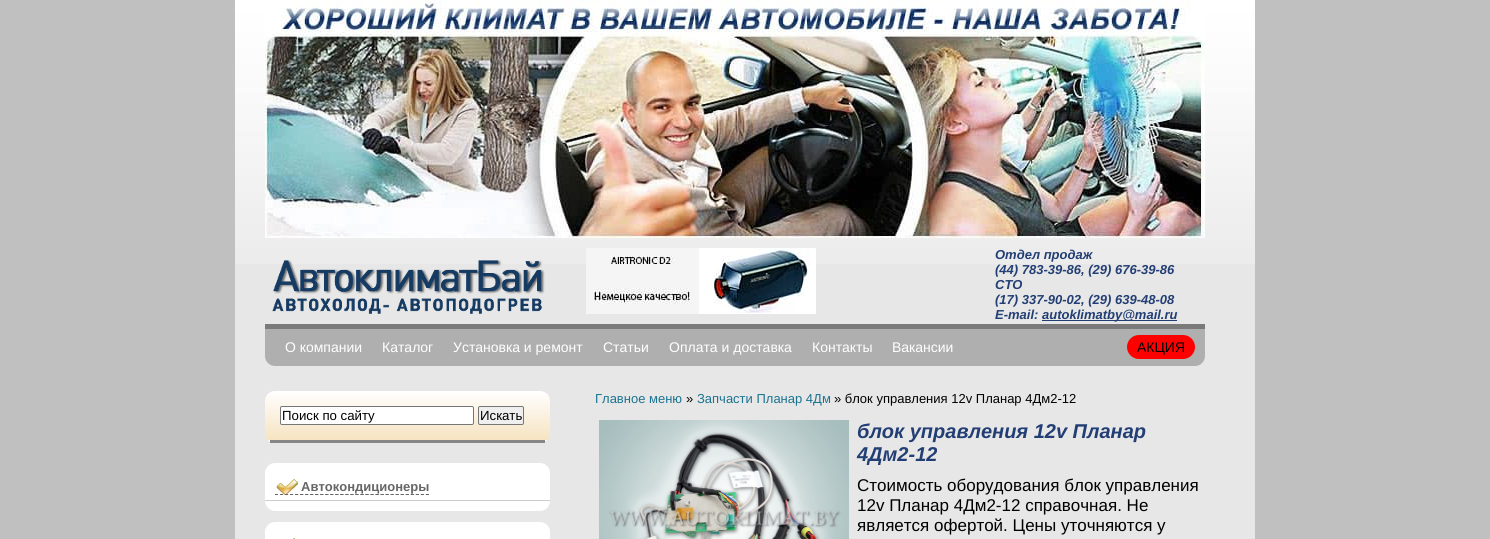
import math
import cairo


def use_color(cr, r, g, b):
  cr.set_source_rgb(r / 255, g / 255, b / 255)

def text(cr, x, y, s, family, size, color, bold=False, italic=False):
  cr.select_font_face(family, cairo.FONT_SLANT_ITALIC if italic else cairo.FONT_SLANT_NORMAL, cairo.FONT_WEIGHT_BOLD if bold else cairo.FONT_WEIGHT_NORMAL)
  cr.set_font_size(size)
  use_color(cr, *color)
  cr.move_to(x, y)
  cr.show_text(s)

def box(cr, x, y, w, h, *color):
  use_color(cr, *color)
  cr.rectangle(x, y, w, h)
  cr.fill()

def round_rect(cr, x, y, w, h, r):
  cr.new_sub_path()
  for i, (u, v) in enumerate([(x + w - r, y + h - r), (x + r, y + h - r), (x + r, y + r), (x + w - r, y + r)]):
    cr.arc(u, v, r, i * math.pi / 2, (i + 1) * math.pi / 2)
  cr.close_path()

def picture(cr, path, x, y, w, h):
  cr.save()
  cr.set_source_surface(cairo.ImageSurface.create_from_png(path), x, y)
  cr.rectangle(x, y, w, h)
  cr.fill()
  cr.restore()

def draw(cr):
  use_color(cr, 192, 192, 192)
  cr.paint()
  box(cr, 235, 264, 1020, 275, 231, 231, 231)
  picture(cr, "img_01.png", 235, 0, 1020, 264)
  picture(cr, "img_02.png", 265, 0, 940, 238)
  picture(cr, "img_03.png", 272, 260, 273, 54)
  picture(cr, "img_04.png", 586, 248, 229, 66)
  picture(cr, "img_05.png", 594, 248, 216, 65)
  picture(cr, "img_06.png", 815, 248, 1, 66)
  picture(cr, "img_07.png", 594, 313, 216, 1)
  box(cr, 1042, 320, 135, 1, 34, 62, 116)
  use_color(cr, 175, 175, 175)
  cr.new_path()
  cr.move_to(265, 324)
  cr.line_to(1205, 324)
  cr.line_to(1205, 356)
  cr.curve_to(1205, 361.5, 1200.5, 366, 1195, 366)
  cr.line_to(275, 366)
  cr.curve_to(269.5, 366, 265, 361.5, 265, 356)
  cr.close_path()
  cr.fill()
  box(cr, 265, 324, 940, 5, 122, 122, 122)
  use_color(cr, 255, 0, 0)
  round_rect(cr, 1127, 335, 68, 24, 12)
  cr.fill()
  cr.save()
  round_rect(cr, 265, 391, 285, 52, 10)
  cr.clip()
  gradient = cairo.LinearGradient(408, 391, 408, 440)
  gradient.add_color_stop_rgba(0, 1, 1, 1, 1)
  gradient.add_color_stop_rgba(1, 0.965, 0.89, 0.757, 1)
  cr.set_source(gradient)
  cr.new_path()
  cr.move_to(275, 391)
  cr.line_to(540, 391)
  cr.curve_to(545.5, 391, 550, 395.5, 550, 401)
  cr.line_to(550, 440)
  cr.line_to(265, 440)
  cr.line_to(265, 401)
  cr.curve_to(265, 395.5, 269.5, 391, 275, 391)
  cr.close_path()
  cr.fill()
  gradient = cairo.LinearGradient(408, 440, 408, 489)
  gradient.add_color_stop_rgba(0, 1, 1, 1, 1)
  gradient.add_color_stop_rgba(1, 0.965, 0.89, 0.757, 1)
  cr.set_source(gradient)
  cr.rectangle(265, 440, 285, 2)
  cr.fill()
  cr.restore()
  box(cr, 270, 440, 275, 3, 134, 134, 134)
  use_color(cr, 255, 255, 255)
  round_rect(cr, 280.5, 406.5, 193, 18, 1.5)
  cr.fill_preserve()
  use_color(cr, 118, 118, 118)
  cr.set_line_width(1)
  cr.stroke()
  use_color(cr, 239, 239, 239)
  round_rect(cr, 478.5, 406.5, 45, 18, 1.5)
  cr.fill_preserve()
  use_color(cr, 118, 118, 118)
  cr.stroke()
  picture(cr, "img_08.png", 265, 463, 285, 10)
  box(cr, 265, 473, 285, 27, 255, 255, 255)
  box(cr, 265, 500, 285, 1, 204, 204, 204)
  cr.new_path()
  cr.move_to(275, 494.5)
  cr.line_to(429, 494.5)
  use_color(cr, 102, 102, 102)
  cr.set_dash([3, 2.03])
  cr.stroke()
  picture(cr, "img_09.png", 276, 479, 22, 16)
  cr.new_path()
  cr.move_to(275, 494.5)
  cr.line_to(429, 494.5)
  cr.stroke()
  picture(cr, "img_10.png", 265, 501, 285, 10)
  picture(cr, "img_08.png", 265, 522, 285, 10)
  box(cr, 265, 532, 285, 7, 255, 255, 255)
  picture(cr, "img_11.png", 293, 538, 2, 1)
  picture(cr, "img_12.png", 599, 420, 250, 119)
  text(cr, 995, 259, "Отдел продаж", "Liberation Sans", 13, (34, 62, 116), bold=True, italic=True)
  text(cr, 995, 274, "(44) 783-39-86, (29) 676-39-86", "Liberation Sans", 13, (34, 62, 116), bold=True, italic=True)
  text(cr, 995, 289, "СТО", "Liberation Sans", 13, (34, 62, 116), bold=True, italic=True)
  text(cr, 995, 304, "(17) 337-90-02, (29) 639-48-08", "Liberation Sans", 13, (34, 62, 116), bold=True, italic=True)
  text(cr, 995, 319, "Е-mail:", "Liberation Sans", 13, (34, 62, 116), bold=True, italic=True)
  text(cr, 1042, 319, "autoklimatby@mail.ru", "Liberation Sans", 13, (34, 62, 116), bold=True, italic=True)
  text(cr, 285, 352, "О компании", "Liberation Sans", 14, (255, 255, 255))
  text(cr, 382, 352, "Каталог", "Liberation Sans", 14, (255, 255, 255))
  text(cr, 453, 352, "Установка и ремонт", "Liberation Sans", 14, (255, 255, 255))
  text(cr, 603, 352, "Статьи", "Liberation Sans", 14, (255, 255, 255))
  text(cr, 669, 352, "Оплата и доставка", "Liberation Sans", 14, (255, 255, 255))
  text(cr, 812, 352, "Контакты", "Liberation Sans", 14, (255, 255, 255))
  text(cr, 892, 352, "Вакансии", "Liberation Sans", 14, (255, 255, 255))
  text(cr, 1137, 352, "АКЦИЯ", "Liberation Sans", 14, (0, 0, 0))
  text(cr, 282, 420, "Поиск по сайту", "Liberation Sans", 13.25, (0, 0, 0))
  text(cr, 480, 420, "Искать", "Liberation Sans", 13.25, (0, 0, 0))
  text(cr, 301, 491, "Автокондиционеры", "Liberation Sans", 13, (102, 102, 102), bold=True)
  text(cr, 595, 403, "Главное меню", "Liberation Sans", 13, (26, 115, 143))
  text(cr, 686, 403, "»", "Liberation Sans", 13, (0, 0, 0))
  text(cr, 697, 403, "Запчасти Планар 4Дм", "Liberation Sans", 13, (26, 115, 143))
  text(cr, 834, 403, "» блок управления 12v Планар 4Дм2-12", "Liberation Sans", 13, (0, 0, 0))
  text(cr, 857, 438, "блок управления 12v Планар", "Liberation Sans", 20, (34, 62, 116), bold=True, italic=True)
  text(cr, 857, 461, "4Дм2-12", "Liberation Sans", 20, (34, 62, 116), bold=True, italic=True)
  text(cr, 857, 491, "Стоимость оборудования блок управления", "Liberation Sans", 17, (0, 0, 0))
  text(cr, 857, 511, "12v Планар 4Дм2-12 справочная. Не", "Liberation Sans", 17, (0, 0, 0))
  text(cr, 857, 531, "является офертой. Цены уточняются у", "Liberation Sans", 17, (0, 0, 0))


surface = cairo.ImageSurface(cairo.FORMAT_RGB24, 1490, 539)
cr = cairo.Context(surface)
options = cairo.FontOptions()
options.set_hint_metrics(cairo.HINT_METRICS_OFF)
options.set_hint_style(cairo.HINT_STYLE_NONE)
cr.set_font_options(options)
cr.set_miter_limit(4)
draw(cr)
surface.write_to_png("out.png")
